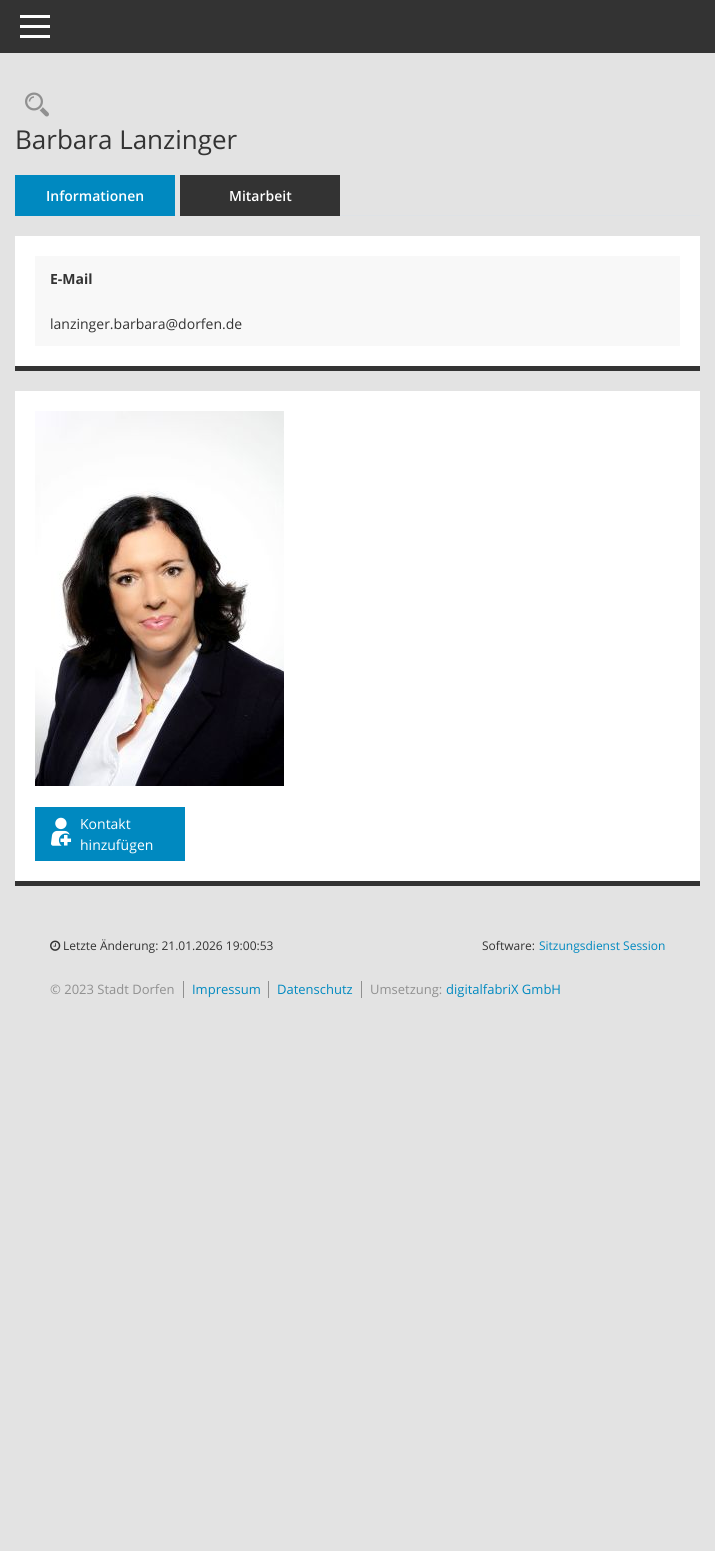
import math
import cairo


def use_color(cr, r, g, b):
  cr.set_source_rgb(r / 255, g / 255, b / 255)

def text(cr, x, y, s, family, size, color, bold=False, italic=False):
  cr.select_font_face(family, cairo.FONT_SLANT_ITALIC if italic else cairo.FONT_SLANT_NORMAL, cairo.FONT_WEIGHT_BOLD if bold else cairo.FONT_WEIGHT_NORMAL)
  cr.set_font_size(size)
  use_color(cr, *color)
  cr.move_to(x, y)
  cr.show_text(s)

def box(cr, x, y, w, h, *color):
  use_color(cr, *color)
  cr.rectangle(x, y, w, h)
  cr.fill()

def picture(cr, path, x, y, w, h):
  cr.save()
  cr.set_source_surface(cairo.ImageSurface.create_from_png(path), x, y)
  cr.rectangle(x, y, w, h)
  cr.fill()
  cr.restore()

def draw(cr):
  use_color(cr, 227, 227, 227)
  cr.paint()
  box(cr, 0, 0, 715, 53, 51, 51, 51)
  box(cr, 20, 15, 30, 3, 255, 255, 255)
  box(cr, 20, 25, 30, 3, 255, 255, 255)
  box(cr, 20, 35, 30, 3, 255, 255, 255)
  picture(cr, "img_01.png", 25, 92, 24, 25)
  box(cr, 175, 215, 525, 1, 222, 226, 230)
  box(cr, 15, 175, 160, 41, 0, 137, 192)
  box(cr, 180, 175, 160, 41, 51, 51, 51)
  box(cr, 15, 236, 685, 130, 255, 255, 255)
  box(cr, 15, 366, 685, 5, 51, 51, 51)
  box(cr, 35, 256, 645, 90, 248, 248, 248)
  box(cr, 15, 391, 685, 490, 255, 255, 255)
  box(cr, 15, 881, 685, 5, 51, 51, 51)
  picture(cr, "img_02.png", 35, 411, 249, 375)
  box(cr, 35, 807, 150, 54, 0, 137, 192)
  picture(cr, "img_03.png", 51, 817, 21, 29)
  picture(cr, "img_04.png", 50, 940, 11, 11)
  box(cr, 183, 981, 1, 17, 144, 144, 144)
  box(cr, 268, 981, 1, 17, 144, 144, 144)
  box(cr, 361, 981, 1, 17, 144, 144, 144)
  text(cr, 15, 149, "Barbara Lanzinger", "Open Sans", 26, (51, 51, 51))
  text(cr, 46, 201, "Informationen", "Open Sans SemiBold", 14, (255, 255, 255))
  text(cr, 229, 201, "Mitarbeit", "Open Sans SemiBold", 14, (255, 255, 255))
  text(cr, 50, 284, "E-Mail", "Open Sans", 14, (51, 51, 51), bold=True)
  text(cr, 50, 329, "lanzinger.barbara@dorfen.de", "Open Sans", 14, (51, 51, 51))
  text(cr, 80, 829, "Kontakt", "Open Sans", 14, (255, 255, 255))
  text(cr, 80, 850, "hinzufügen", "Open Sans", 14, (255, 255, 255))
  text(cr, 63, 950, "Letzte Änderung: 21.01.2026 19:00:53", "Open Sans", 12, (51, 51, 51))
  text(cr, 482, 950, "Software:", "Open Sans", 12, (51, 51, 51))
  text(cr, 539, 950, "Sitzungsdienst Session", "Open Sans", 12, (0, 137, 192))
  text(cr, 50, 994, "© 2023 Stadt Dorfen", "Open Sans", 13, (144, 144, 144))
  text(cr, 192, 994, "Impressum", "Open Sans", 13, (0, 137, 192))
  text(cr, 277, 994, "Datenschutz", "Open Sans", 13, (0, 137, 192))
  text(cr, 370, 994, "Umsetzung:", "Open Sans", 13, (144, 144, 144))
  text(cr, 446, 994, "digitalfabriX GmbH", "Open Sans", 13, (0, 137, 192))


surface = cairo.ImageSurface(cairo.FORMAT_RGB24, 715, 1551)
cr = cairo.Context(surface)
options = cairo.FontOptions()
options.set_hint_metrics(cairo.HINT_METRICS_OFF)
options.set_hint_style(cairo.HINT_STYLE_NONE)
cr.set_font_options(options)
cr.set_miter_limit(4)
draw(cr)
surface.write_to_png("out.png")
